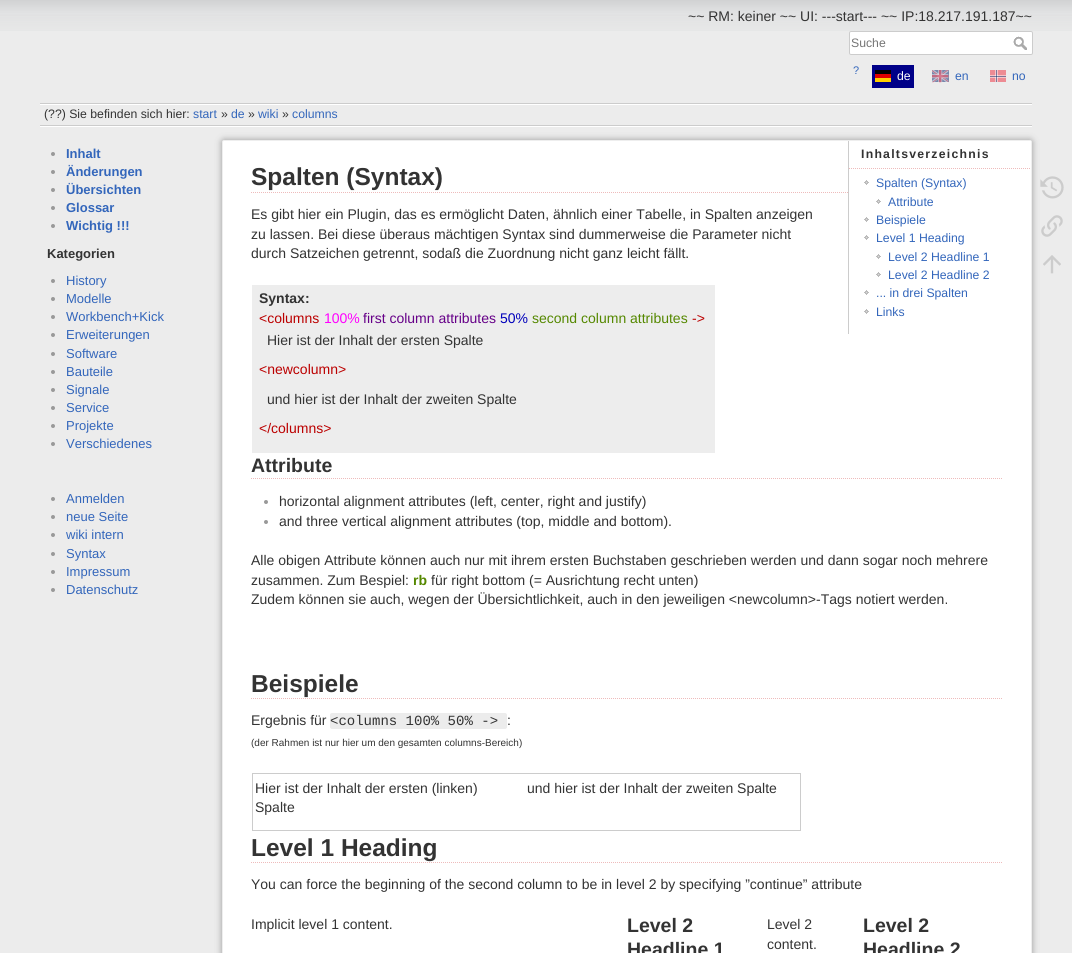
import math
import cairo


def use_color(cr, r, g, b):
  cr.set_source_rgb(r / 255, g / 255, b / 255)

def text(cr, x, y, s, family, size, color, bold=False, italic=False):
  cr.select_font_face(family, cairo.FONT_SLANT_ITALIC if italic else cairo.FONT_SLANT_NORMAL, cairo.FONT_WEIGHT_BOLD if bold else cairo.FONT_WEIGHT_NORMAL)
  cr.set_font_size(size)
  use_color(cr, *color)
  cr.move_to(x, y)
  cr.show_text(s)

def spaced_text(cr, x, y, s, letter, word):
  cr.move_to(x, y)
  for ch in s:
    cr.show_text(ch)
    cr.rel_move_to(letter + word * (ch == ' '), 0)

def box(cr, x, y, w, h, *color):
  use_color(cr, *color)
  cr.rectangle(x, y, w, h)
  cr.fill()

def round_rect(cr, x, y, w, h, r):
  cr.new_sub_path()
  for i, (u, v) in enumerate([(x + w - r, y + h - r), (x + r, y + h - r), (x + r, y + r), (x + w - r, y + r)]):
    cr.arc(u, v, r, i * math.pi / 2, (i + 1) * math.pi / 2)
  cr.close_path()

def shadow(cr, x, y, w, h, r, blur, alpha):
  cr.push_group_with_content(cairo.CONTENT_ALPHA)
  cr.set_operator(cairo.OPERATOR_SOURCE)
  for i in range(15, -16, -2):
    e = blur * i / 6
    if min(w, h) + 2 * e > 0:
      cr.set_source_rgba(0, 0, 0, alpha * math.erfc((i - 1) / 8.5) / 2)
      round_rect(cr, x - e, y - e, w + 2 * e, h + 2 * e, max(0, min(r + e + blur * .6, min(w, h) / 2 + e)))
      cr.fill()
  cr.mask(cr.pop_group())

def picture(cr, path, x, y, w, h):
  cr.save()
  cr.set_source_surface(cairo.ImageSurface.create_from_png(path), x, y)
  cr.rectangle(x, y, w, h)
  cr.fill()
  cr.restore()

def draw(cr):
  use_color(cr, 236, 236, 236)
  cr.paint()
  picture(cr, "img_01.png", 0, 0, 1072, 31)
  use_color(cr, 255, 255, 255)
  round_rect(cr, 849.5, 31.5, 183, 23, 1.5)
  cr.fill_preserve()
  use_color(cr, 204, 204, 204)
  cr.set_line_width(1)
  cr.stroke()
  picture(cr, "img_02.png", 1013, 36, 14, 14)
  box(cr, 872, 65, 42, 23, 0, 0, 136)
  box(cr, 875, 70, 16, 4, 0, 0, 0)
  box(cr, 875, 74, 16, 4, 221, 0, 0)
  box(cr, 875, 78, 16, 4, 255, 206, 0)
  picture(cr, "img_03.png", 932, 70, 17, 13)
  picture(cr, "img_04.png", 990, 70, 16, 12)
  box(cr, 40, 103, 992, 1, 204, 204, 204)
  box(cr, 40, 126, 992, 1, 255, 255, 255)
  box(cr, 40, 104, 992, 1, 255, 255, 255)
  box(cr, 40, 125, 992, 1, 204, 204, 204)
  use_color(cr, 153, 153, 153)
  cr.arc(53, 154, 2, 0, 2 * math.pi)
  cr.fill()
  cr.arc(53, 172, 2, 0, 2 * math.pi)
  cr.fill()
  cr.arc(53, 190, 2, 0, 2 * math.pi)
  cr.fill()
  cr.arc(53, 208, 2, 0, 2 * math.pi)
  cr.fill()
  cr.arc(53, 226, 2, 0, 2 * math.pi)
  cr.fill()
  cr.arc(53, 281, 2, 0, 2 * math.pi)
  cr.fill()
  cr.arc(53, 299, 2, 0, 2 * math.pi)
  cr.fill()
  cr.arc(53, 317, 2, 0, 2 * math.pi)
  cr.fill()
  cr.arc(53, 335, 2, 0, 2 * math.pi)
  cr.fill()
  cr.arc(53, 354, 2, 0, 2 * math.pi)
  cr.fill()
  cr.arc(53, 372, 2, 0, 2 * math.pi)
  cr.fill()
  cr.arc(53, 390, 2, 0, 2 * math.pi)
  cr.fill()
  cr.arc(53, 408, 2, 0, 2 * math.pi)
  cr.fill()
  cr.arc(53, 426, 2, 0, 2 * math.pi)
  cr.fill()
  cr.arc(53, 444, 2, 0, 2 * math.pi)
  cr.fill()
  cr.arc(53, 499, 2, 0, 2 * math.pi)
  cr.fill()
  cr.arc(53, 517, 2, 0, 2 * math.pi)
  cr.fill()
  cr.arc(53, 535, 2, 0, 2 * math.pi)
  cr.fill()
  cr.arc(53, 554, 2, 0, 2 * math.pi)
  cr.fill()
  cr.arc(53, 572, 2, 0, 2 * math.pi)
  cr.fill()
  cr.arc(53, 590, 2, 0, 2 * math.pi)
  cr.fill()
  use_color(cr, 153, 153, 153)
  shadow(cr, 222, 140, 810, 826, 2, 3.5, 1)
  use_color(cr, 255, 255, 255)
  round_rect(cr, 222.5, 140.5, 809, 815, 1.5)
  cr.fill_preserve()
  use_color(cr, 238, 238, 238)
  cr.stroke()
  cr.new_path()
  cr.move_to(251, 192.5)
  cr.line_to(1003, 192.5)
  use_color(cr, 238, 187, 187)
  cr.set_dash([1, 1])
  cr.stroke()
  use_color(cr, 255, 255, 255)
  cr.new_path()
  cr.move_to(848, 141)
  cr.line_to(1030, 141)
  cr.curve_to(1030.5, 141, 1031, 141.5, 1031, 142)
  cr.line_to(1031, 334)
  cr.line_to(848, 334)
  cr.close_path()
  cr.fill()
  box(cr, 848, 141, 1, 193, 204, 204, 204)
  cr.new_path()
  cr.move_to(849, 168.5)
  cr.line_to(1031, 168.5)
  use_color(cr, 238, 187, 187)
  cr.stroke()
  picture(cr, "img_05.png", 864, 180, 5, 5)
  picture(cr, "img_05.png", 876, 199, 5, 5)
  picture(cr, "img_05.png", 864, 217, 5, 5)
  picture(cr, "img_05.png", 864, 235, 5, 5)
  picture(cr, "img_05.png", 876, 254, 5, 5)
  picture(cr, "img_05.png", 876, 272, 5, 5)
  picture(cr, "img_05.png", 864, 290, 5, 5)
  picture(cr, "img_05.png", 864, 309, 5, 5)
  box(cr, 252, 285, 463, 168, 237, 237, 237)
  cr.new_path()
  cr.move_to(251, 478.5)
  cr.line_to(1003, 478.5)
  use_color(cr, 238, 187, 187)
  cr.stroke()
  use_color(cr, 153, 153, 153)
  cr.arc(266, 502, 2, 0, 2 * math.pi)
  cr.fill()
  cr.arc(266, 522, 2, 0, 2 * math.pi)
  cr.fill()
  cr.new_path()
  cr.move_to(251, 698.5)
  cr.line_to(1003, 698.5)
  use_color(cr, 238, 187, 187)
  cr.stroke()
  use_color(cr, 236, 236, 236)
  round_rect(cr, 330, 713, 177, 16, 2)
  cr.fill()
  box(cr, 252, 773, 549, 1, 204, 204, 204)
  box(cr, 800, 773, 1, 58, 204, 204, 204)
  box(cr, 252, 830, 549, 1, 204, 204, 204)
  box(cr, 252, 773, 1, 58, 204, 204, 204)
  cr.new_path()
  cr.move_to(251, 862.5)
  cr.line_to(1003, 862.5)
  use_color(cr, 238, 187, 187)
  cr.stroke()
  picture(cr, "img_06.png", 1040, 176, 24, 23)
  picture(cr, "img_07.png", 1041, 215, 22, 22)
  picture(cr, "img_08.png", 1043, 255, 18, 19)
  text(cr, 688, 21, "~~ RM: keiner ~~ UI: ---start--- ~~ IP:18.217.191.187~~", "Liberation Sans", 14, (51, 51, 51))
  text(cr, 851, 47, "Suche", "Liberation Sans", 12.25, (117, 117, 117))
  text(cr, 853, 74, "?", "Liberation Sans", 11, (51, 102, 187))
  text(cr, 897, 80, "de", "Liberation Sans", 12.25, (255, 255, 255))
  text(cr, 955, 80, "en", "Liberation Sans", 12.25, (51, 102, 187))
  text(cr, 1012, 80, "no", "Liberation Sans", 12.25, (51, 102, 187))
  text(cr, 44, 118, "(??) Sie befinden sich hier:", "Liberation Sans", 12.25, (51, 51, 51))
  text(cr, 193, 118, "start", "Liberation Sans", 12.25, (51, 102, 187))
  text(cr, 221, 118, "»", "Liberation Sans", 12.25, (51, 51, 51))
  text(cr, 231, 118, "de", "Liberation Sans", 12.25, (51, 102, 187))
  text(cr, 248, 118, "»", "Liberation Sans", 12.25, (51, 51, 51))
  text(cr, 258, 118, "wiki", "Liberation Sans", 12.25, (51, 102, 187))
  text(cr, 282, 118, "»", "Liberation Sans", 12.25, (51, 51, 51))
  text(cr, 292, 118, "columns", "Liberation Sans", 12.25, (51, 102, 187))
  text(cr, 66, 158, "Inhalt", "Liberation Sans", 13, (51, 102, 187), bold=True)
  text(cr, 66, 176, "Änderungen", "Liberation Sans", 13, (51, 102, 187), bold=True)
  text(cr, 66, 194, "Übersichten", "Liberation Sans", 13, (51, 102, 187), bold=True)
  text(cr, 66, 212, "Glossar", "Liberation Sans", 13, (51, 102, 187), bold=True)
  text(cr, 66, 230, "Wichtig !!!", "Liberation Sans", 13, (51, 102, 187), bold=True)
  text(cr, 47, 258, "Kategorien", "Liberation Sans", 13, (51, 51, 51), bold=True)
  text(cr, 66, 285, "History", "Liberation Sans", 13, (51, 102, 187))
  text(cr, 66, 303, "Modelle", "Liberation Sans", 13, (51, 102, 187))
  text(cr, 66, 321, "Workbench+Kick", "Liberation Sans", 13, (51, 102, 187))
  text(cr, 66, 339, "Erweiterungen", "Liberation Sans", 13, (51, 102, 187))
  text(cr, 66, 358, "Software", "Liberation Sans", 13, (51, 102, 187))
  text(cr, 66, 376, "Bauteile", "Liberation Sans", 13, (51, 102, 187))
  text(cr, 66, 394, "Signale", "Liberation Sans", 13, (51, 102, 187))
  text(cr, 66, 412, "Service", "Liberation Sans", 13, (51, 102, 187))
  text(cr, 66, 430, "Projekte", "Liberation Sans", 13, (51, 102, 187))
  text(cr, 66, 448, "Verschiedenes", "Liberation Sans", 13, (51, 102, 187))
  text(cr, 66, 503, "Anmelden", "Liberation Sans", 13, (51, 102, 187))
  text(cr, 66, 521, "neue Seite", "Liberation Sans", 13, (51, 102, 187))
  text(cr, 66, 539, "wiki intern", "Liberation Sans", 13, (51, 102, 187))
  text(cr, 66, 558, "Syntax", "Liberation Sans", 13, (51, 102, 187))
  text(cr, 66, 576, "Impressum", "Liberation Sans", 13, (51, 102, 187))
  text(cr, 66, 594, "Datenschutz", "Liberation Sans", 13, (51, 102, 187))
  text(cr, 251, 185, "Spalten (Syntax)", "Liberation Sans", 24.5, (51, 51, 51), bold=True)
  cr.set_font_size(12.25)
  spaced_text(cr, 861, 158, "Inhaltsverzeichnis", 1.25, 0)
  text(cr, 876, 187, "Spalten (Syntax)", "Liberation Sans", 12.25, (51, 102, 187))
  text(cr, 888, 206, "Attribute", "Liberation Sans", 12.25, (51, 102, 187))
  text(cr, 876, 224, "Beispiele", "Liberation Sans", 12.25, (51, 102, 187))
  text(cr, 876, 242, "Level 1 Heading", "Liberation Sans", 12.25, (51, 102, 187))
  text(cr, 888, 261, "Level 2 Headline 1", "Liberation Sans", 12.25, (51, 102, 187))
  text(cr, 888, 279, "Level 2 Headline 2", "Liberation Sans", 12.25, (51, 102, 187))
  text(cr, 876, 297, "... in drei Spalten", "Liberation Sans", 12.25, (51, 102, 187))
  text(cr, 876, 316, "Links", "Liberation Sans", 12.25, (51, 102, 187))
  text(cr, 251, 219, "Es gibt hier ein Plugin, das es ermöglicht Daten, ähnlich einer Tabelle, in Spalten anzeigen", "Liberation Sans", 14, (51, 51, 51))
  text(cr, 251, 239, "zu lassen. Bei diese überaus mächtigen Syntax sind dummerweise die Parameter nicht", "Liberation Sans", 14, (51, 51, 51))
  text(cr, 251, 258, "durch Satzeichen getrennt, sodaß die Zuordnung nicht ganz leicht fällt.", "Liberation Sans", 14, (51, 51, 51))
  text(cr, 259, 303, "Syntax:", "Liberation Sans", 14, (51, 51, 51), bold=True)
  text(cr, 259, 323, "<columns", "Liberation Sans", 14, (187, 0, 0))
  text(cr, 324, 323, "100%", "Liberation Sans", 14, (255, 0, 255))
  text(cr, 363, 323, "first column attributes", "Liberation Sans", 14, (102, 0, 136))
  text(cr, 500, 323, "50%", "Liberation Sans", 14, (0, 0, 187))
  text(cr, 532, 323, "second column attributes", "Liberation Sans", 14, (85, 136, 0))
  text(cr, 692, 323, "->", "Liberation Sans", 14, (187, 0, 0))
  text(cr, 267, 345, "Hier ist der Inhalt der ersten Spalte", "Liberation Sans", 14, (51, 51, 51))
  text(cr, 259, 374, "<newcolumn>", "Liberation Sans", 14, (187, 0, 0))
  text(cr, 267, 404, "und hier ist der Inhalt der zweiten Spalte", "Liberation Sans", 14, (51, 51, 51))
  text(cr, 259, 433, "</columns>", "Liberation Sans", 14, (187, 0, 0))
  text(cr, 251, 472, "Attribute", "Liberation Sans", 19.5, (51, 51, 51), bold=True)
  text(cr, 279, 506, "horizontal alignment attributes (left, center, right and justify)", "Liberation Sans", 14, (51, 51, 51))
  text(cr, 279, 526, "and three vertical alignment attributes (top, middle and bottom).", "Liberation Sans", 14, (51, 51, 51))
  text(cr, 251, 565, "Alle obigen Attribute können auch nur mit ihrem ersten Buchstaben geschrieben werden und dann sogar noch mehrere", "Liberation Sans", 14, (51, 51, 51))
  text(cr, 251, 585, "zusammen. Zum Bespiel:", "Liberation Sans", 14, (51, 51, 51))
  text(cr, 413, 585, "rb", "Liberation Sans", 14, (85, 136, 0), bold=True)
  text(cr, 431, 585, "für right bottom (= Ausrichtung recht unten)", "Liberation Sans", 14, (51, 51, 51))
  text(cr, 251, 604, "Zudem können sie auch, wegen der Übersichtlichkeit, auch in den jeweiligen <newcolumn>-Tags notiert werden.", "Liberation Sans", 14, (51, 51, 51))
  text(cr, 251, 692, "Beispiele", "Liberation Sans", 24.5, (51, 51, 51), bold=True)
  text(cr, 251, 725, "Ergebnis für", "Liberation Sans", 14, (51, 51, 51))
  text(cr, 330, 725, "<columns 100% 50% ->", "Liberation Mono", 14, (51, 51, 51))
  text(cr, 507, 725, ":", "Liberation Sans", 14, (51, 51, 51))
  text(cr, 251, 746, "(der Rahmen ist nur hier um den gesamten columns-Bereich)", "Liberation Sans", 10, (51, 51, 51))
  text(cr, 255, 793, "Hier ist der Inhalt der ersten (linken)", "Liberation Sans", 14, (51, 51, 51))
  text(cr, 255, 812, "Spalte", "Liberation Sans", 14, (51, 51, 51))
  text(cr, 527, 793, "und hier ist der Inhalt der zweiten Spalte", "Liberation Sans", 14, (51, 51, 51))
  text(cr, 251, 856, "Level 1 Heading", "Liberation Sans", 24.5, (51, 51, 51), bold=True)
  text(cr, 251, 889, "You can force the beginning of the second column to be in level 2 by specifying ”continue” attribute", "Liberation Sans", 14, (51, 51, 51))
  text(cr, 251, 929, "Implicit level 1 content.", "Liberation Sans", 14, (51, 51, 51))
  text(cr, 627, 932, "Level 2", "Liberation Sans", 19.5, (51, 51, 51), bold=True)
  text(cr, 627, 956, "Headline 1", "Liberation Sans", 19.5, (51, 51, 51), bold=True)
  text(cr, 767, 929, "Level 2", "Liberation Sans", 14, (51, 51, 51))
  text(cr, 767, 949, "content.", "Liberation Sans", 14, (51, 51, 51))
  text(cr, 863, 932, "Level 2", "Liberation Sans", 19.5, (51, 51, 51), bold=True)
  text(cr, 863, 956, "Headline 2", "Liberation Sans", 19.5, (51, 51, 51), bold=True)


surface = cairo.ImageSurface(cairo.FORMAT_RGB24, 1072, 953)
cr = cairo.Context(surface)
options = cairo.FontOptions()
options.set_hint_metrics(cairo.HINT_METRICS_OFF)
options.set_hint_style(cairo.HINT_STYLE_NONE)
cr.set_font_options(options)
cr.set_miter_limit(4)
draw(cr)
surface.write_to_png("out.png")
